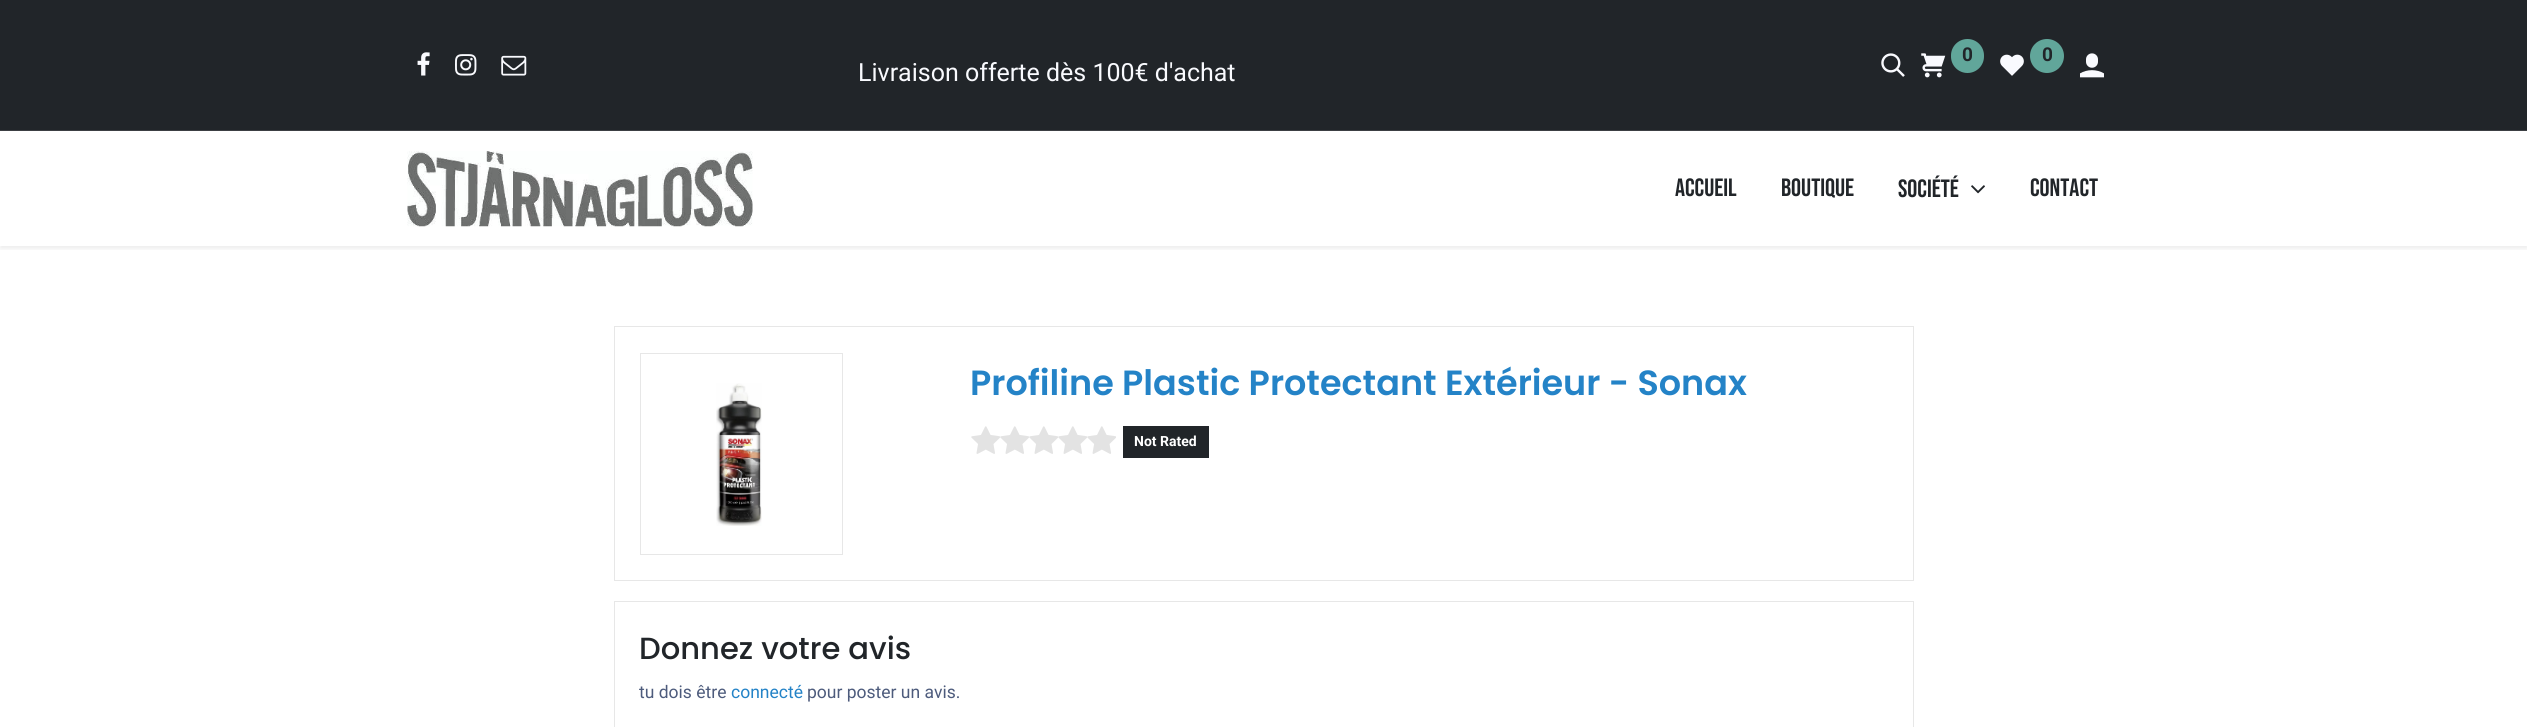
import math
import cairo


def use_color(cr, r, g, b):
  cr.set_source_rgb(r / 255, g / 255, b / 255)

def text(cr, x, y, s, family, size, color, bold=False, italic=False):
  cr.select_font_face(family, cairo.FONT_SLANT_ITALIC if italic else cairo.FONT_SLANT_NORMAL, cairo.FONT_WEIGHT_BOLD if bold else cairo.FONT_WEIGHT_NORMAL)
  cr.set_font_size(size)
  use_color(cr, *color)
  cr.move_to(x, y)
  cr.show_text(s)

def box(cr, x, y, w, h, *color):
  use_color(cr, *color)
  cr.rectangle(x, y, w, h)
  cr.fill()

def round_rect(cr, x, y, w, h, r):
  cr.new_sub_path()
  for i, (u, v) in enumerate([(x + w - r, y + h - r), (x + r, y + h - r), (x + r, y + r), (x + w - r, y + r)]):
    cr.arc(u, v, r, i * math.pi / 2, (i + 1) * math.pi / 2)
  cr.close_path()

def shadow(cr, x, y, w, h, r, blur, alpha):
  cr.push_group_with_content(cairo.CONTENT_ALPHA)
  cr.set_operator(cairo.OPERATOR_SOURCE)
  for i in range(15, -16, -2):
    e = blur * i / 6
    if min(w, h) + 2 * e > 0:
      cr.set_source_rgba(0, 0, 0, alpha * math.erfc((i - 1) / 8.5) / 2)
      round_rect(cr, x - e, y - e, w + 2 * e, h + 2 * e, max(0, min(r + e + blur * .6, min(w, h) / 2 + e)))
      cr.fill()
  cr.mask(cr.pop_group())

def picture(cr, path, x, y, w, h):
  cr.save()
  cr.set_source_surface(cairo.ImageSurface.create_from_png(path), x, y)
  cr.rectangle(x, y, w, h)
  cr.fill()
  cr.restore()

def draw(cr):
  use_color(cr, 255, 255, 255)
  cr.paint()
  box(cr, 0, 0, 2527, 130, 33, 37, 41)
  box(cr, 0, 130, 2527, 1, 60, 63, 67)
  picture(cr, "img_01.png", 417, 52, 13, 24)
  picture(cr, "img_02.png", 455, 54, 22, 22)
  picture(cr, "img_03.png", 501, 55, 26, 21)
  picture(cr, "img_04.png", 1881, 53, 24, 24)
  picture(cr, "img_05.png", 1921, 53, 25, 25)
  use_color(cr, 97, 166, 154)
  round_rect(cr, 1951, 39, 33, 34, 16.5)
  cr.fill()
  picture(cr, "img_06.png", 2000, 54, 24, 22)
  cr.arc(2047, 56, 17, 0, 2 * math.pi)
  cr.fill()
  picture(cr, "img_07.png", 2080, 53, 24, 25)
  cr.save()
  cr.rectangle(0, 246, 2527, 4)
  cr.clip()
  use_color(cr, 0, 0, 0)
  shadow(cr, 0, 134, 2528, 115, 0, 2.5, 0.07)
  cr.restore()
  picture(cr, "img_08.png", 407, 151, 346, 76)
  picture(cr, "img_09.png", 1971, 185, 14, 9)
  cr.rectangle(614.5, 326.5, 1299, 254)
  use_color(cr, 231, 231, 231)
  cr.set_line_width(1)
  cr.stroke()
  cr.rectangle(640.5, 353.5, 202, 201)
  cr.stroke()
  picture(cr, "img_10.png", 716, 383, 46, 143)
  picture(cr, "img_11.png", 971, 426, 145, 28)
  box(cr, 1123, 426, 86, 32, 33, 37, 41)
  cr.rectangle(614.5, 601.5, 1299, 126)
  use_color(cr, 231, 231, 231)
  cr.stroke()
  text(cr, 858, 81, "Livraison offerte dès 100€ d'achat", "Roboto", 25, (249, 250, 254))
  text(cr, 1962, 61, "0", "Roboto", 19, (33, 37, 41), bold=True)
  text(cr, 2042, 61, "0", "Roboto", 19, (33, 37, 41), bold=True)
  text(cr, 1675, 196, "ACCUEIL", "Bebas Neue", 25, (33, 37, 41))
  text(cr, 1781, 196, "BOUTIQUE", "Bebas Neue", 25, (33, 37, 41))
  text(cr, 1898, 197, "SOCIÉTÉ", "Bebas Neue", 25, (33, 37, 41))
  text(cr, 2030, 196, "CONTACT", "Bebas Neue", 25, (33, 37, 41))
  text(cr, 970, 395, "Profiline Plastic Protectant Extérieur - Sonax", "Poppins SemiBold", 35, (36, 131, 199))
  text(cr, 1134, 446, "Not Rated", "Roboto", 14, (255, 255, 255), bold=True)
  text(cr, 639, 659, "Donnez votre avis", "Poppins Medium", 30.6, (33, 37, 41))
  text(cr, 639, 698, "tu dois être", "Roboto", 17.5, (77, 91, 124))
  text(cr, 731, 698, "connecté", "Roboto", 17.5, (36, 131, 199))
  text(cr, 807, 698, "pour poster un avis.", "Roboto", 17.5, (77, 91, 124))


surface = cairo.ImageSurface(cairo.FORMAT_RGB24, 2527, 727)
cr = cairo.Context(surface)
options = cairo.FontOptions()
options.set_hint_metrics(cairo.HINT_METRICS_OFF)
options.set_hint_style(cairo.HINT_STYLE_NONE)
cr.set_font_options(options)
cr.set_miter_limit(4)
draw(cr)
surface.write_to_png("out.png")
